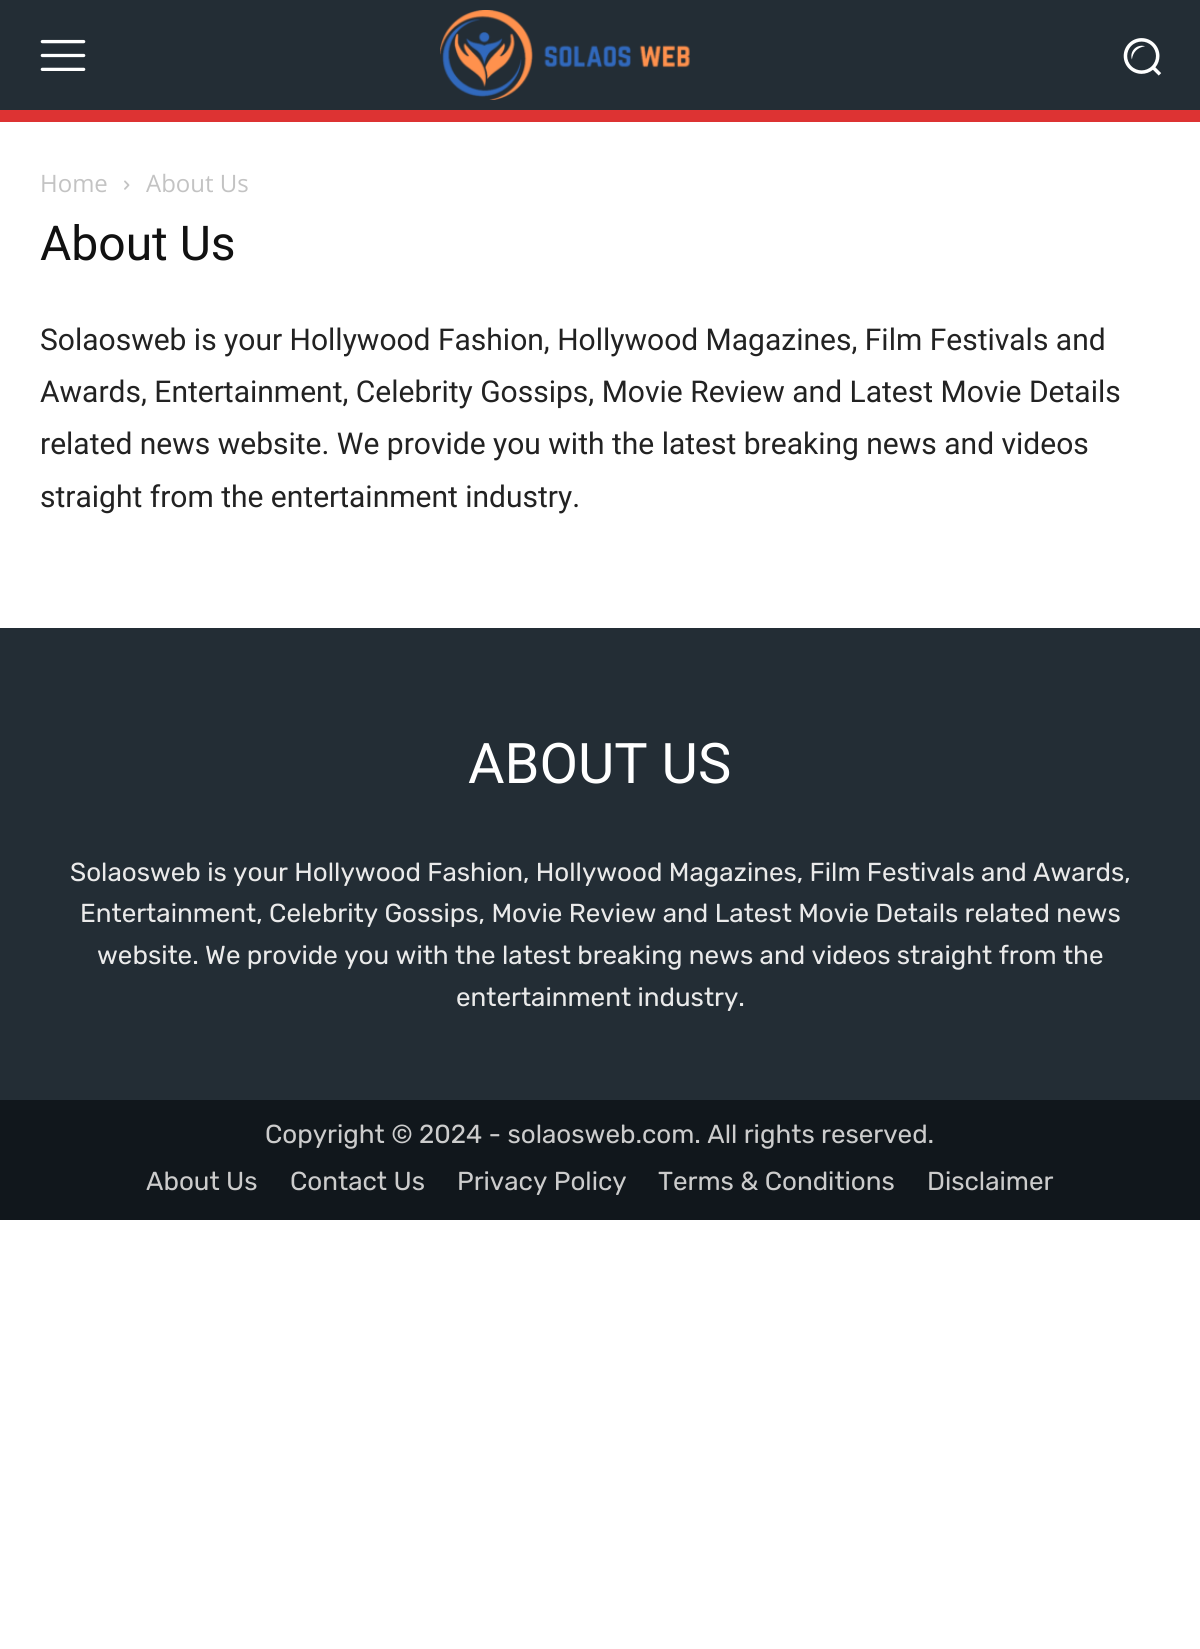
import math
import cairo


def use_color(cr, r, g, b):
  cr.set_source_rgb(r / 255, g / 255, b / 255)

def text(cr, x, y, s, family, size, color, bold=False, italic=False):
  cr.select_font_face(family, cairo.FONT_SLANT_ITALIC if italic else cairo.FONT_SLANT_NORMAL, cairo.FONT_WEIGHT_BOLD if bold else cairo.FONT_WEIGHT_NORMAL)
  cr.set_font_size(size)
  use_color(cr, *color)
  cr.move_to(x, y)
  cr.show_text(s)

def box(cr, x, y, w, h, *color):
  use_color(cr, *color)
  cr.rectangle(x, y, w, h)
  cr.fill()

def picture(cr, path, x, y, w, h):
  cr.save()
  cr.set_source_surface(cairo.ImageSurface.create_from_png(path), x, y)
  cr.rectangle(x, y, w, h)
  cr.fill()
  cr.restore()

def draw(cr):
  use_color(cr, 255, 255, 255)
  cr.paint()
  box(cr, 0, 0, 1200, 110, 35, 45, 53)
  picture(cr, "img_01.png", 40, 39, 46, 32)
  picture(cr, "img_02.png", 440, 10, 250, 90)
  picture(cr, "img_03.png", 1123, 38, 39, 38)
  box(cr, 0, 110, 1200, 12, 221, 51, 51)
  picture(cr, "img_04.png", 124, 180, 6, 10)
  box(cr, 0, 628, 1200, 472, 35, 45, 53)
  box(cr, 0, 1100, 1200, 120, 17, 23, 28)
  text(cr, 40, 192, "Home", "Open Sans", 24, (195, 195, 195))
  text(cr, 146, 192, "About Us", "Open Sans", 24, (195, 195, 195))
  text(cr, 40, 260, "About Us", "Roboto", 48, (17, 17, 17))
  text(cr, 40, 350, "Solaosweb is your Hollywood Fashion, Hollywood Magazines, Film Festivals and", "Roboto", 30, (34, 34, 34))
  text(cr, 40, 402, "Awards, Entertainment, Celebrity Gossips, Movie Review and Latest Movie Details", "Roboto", 30, (34, 34, 34))
  text(cr, 40, 454, "related news website. We provide you with the latest breaking news and videos", "Roboto", 30, (34, 34, 34))
  text(cr, 40, 507, "straight from the entertainment industry.", "Roboto", 30, (34, 34, 34))
  text(cr, 468, 783, "ABOUT US", "Roboto", 56, (255, 255, 255))
  text(cr, 70, 881, "Solaosweb is your Hollywood Fashion, Hollywood Magazines, Film Festivals and Awards,", "Rubik", 26, (234, 234, 234))
  text(cr, 80, 922, "Entertainment, Celebrity Gossips, Movie Review and Latest Movie Details related news", "Rubik", 26, (234, 234, 234))
  text(cr, 97, 964, "website. We provide you with the latest breaking news and videos straight from the", "Rubik", 26, (234, 234, 234))
  text(cr, 456, 1006, "entertainment industry.", "Rubik", 26, (234, 234, 234))
  text(cr, 265, 1143, "Copyright © 2024 - solaosweb.com. All rights reserved.", "Rubik", 26, (204, 204, 204))
  text(cr, 146, 1190, "About Us", "Rubik", 26, (204, 204, 204))
  text(cr, 290, 1190, "Contact Us", "Rubik", 26, (204, 204, 204))
  text(cr, 457, 1190, "Privacy Policy", "Rubik", 26, (204, 204, 204))
  text(cr, 658, 1190, "Terms & Conditions", "Rubik", 26, (204, 204, 204))
  text(cr, 927, 1190, "Disclaimer", "Rubik", 26, (204, 204, 204))


surface = cairo.ImageSurface(cairo.FORMAT_RGB24, 1200, 1649)
cr = cairo.Context(surface)
options = cairo.FontOptions()
options.set_hint_metrics(cairo.HINT_METRICS_OFF)
options.set_hint_style(cairo.HINT_STYLE_NONE)
cr.set_font_options(options)
cr.set_miter_limit(4)
draw(cr)
surface.write_to_png("out.png")
